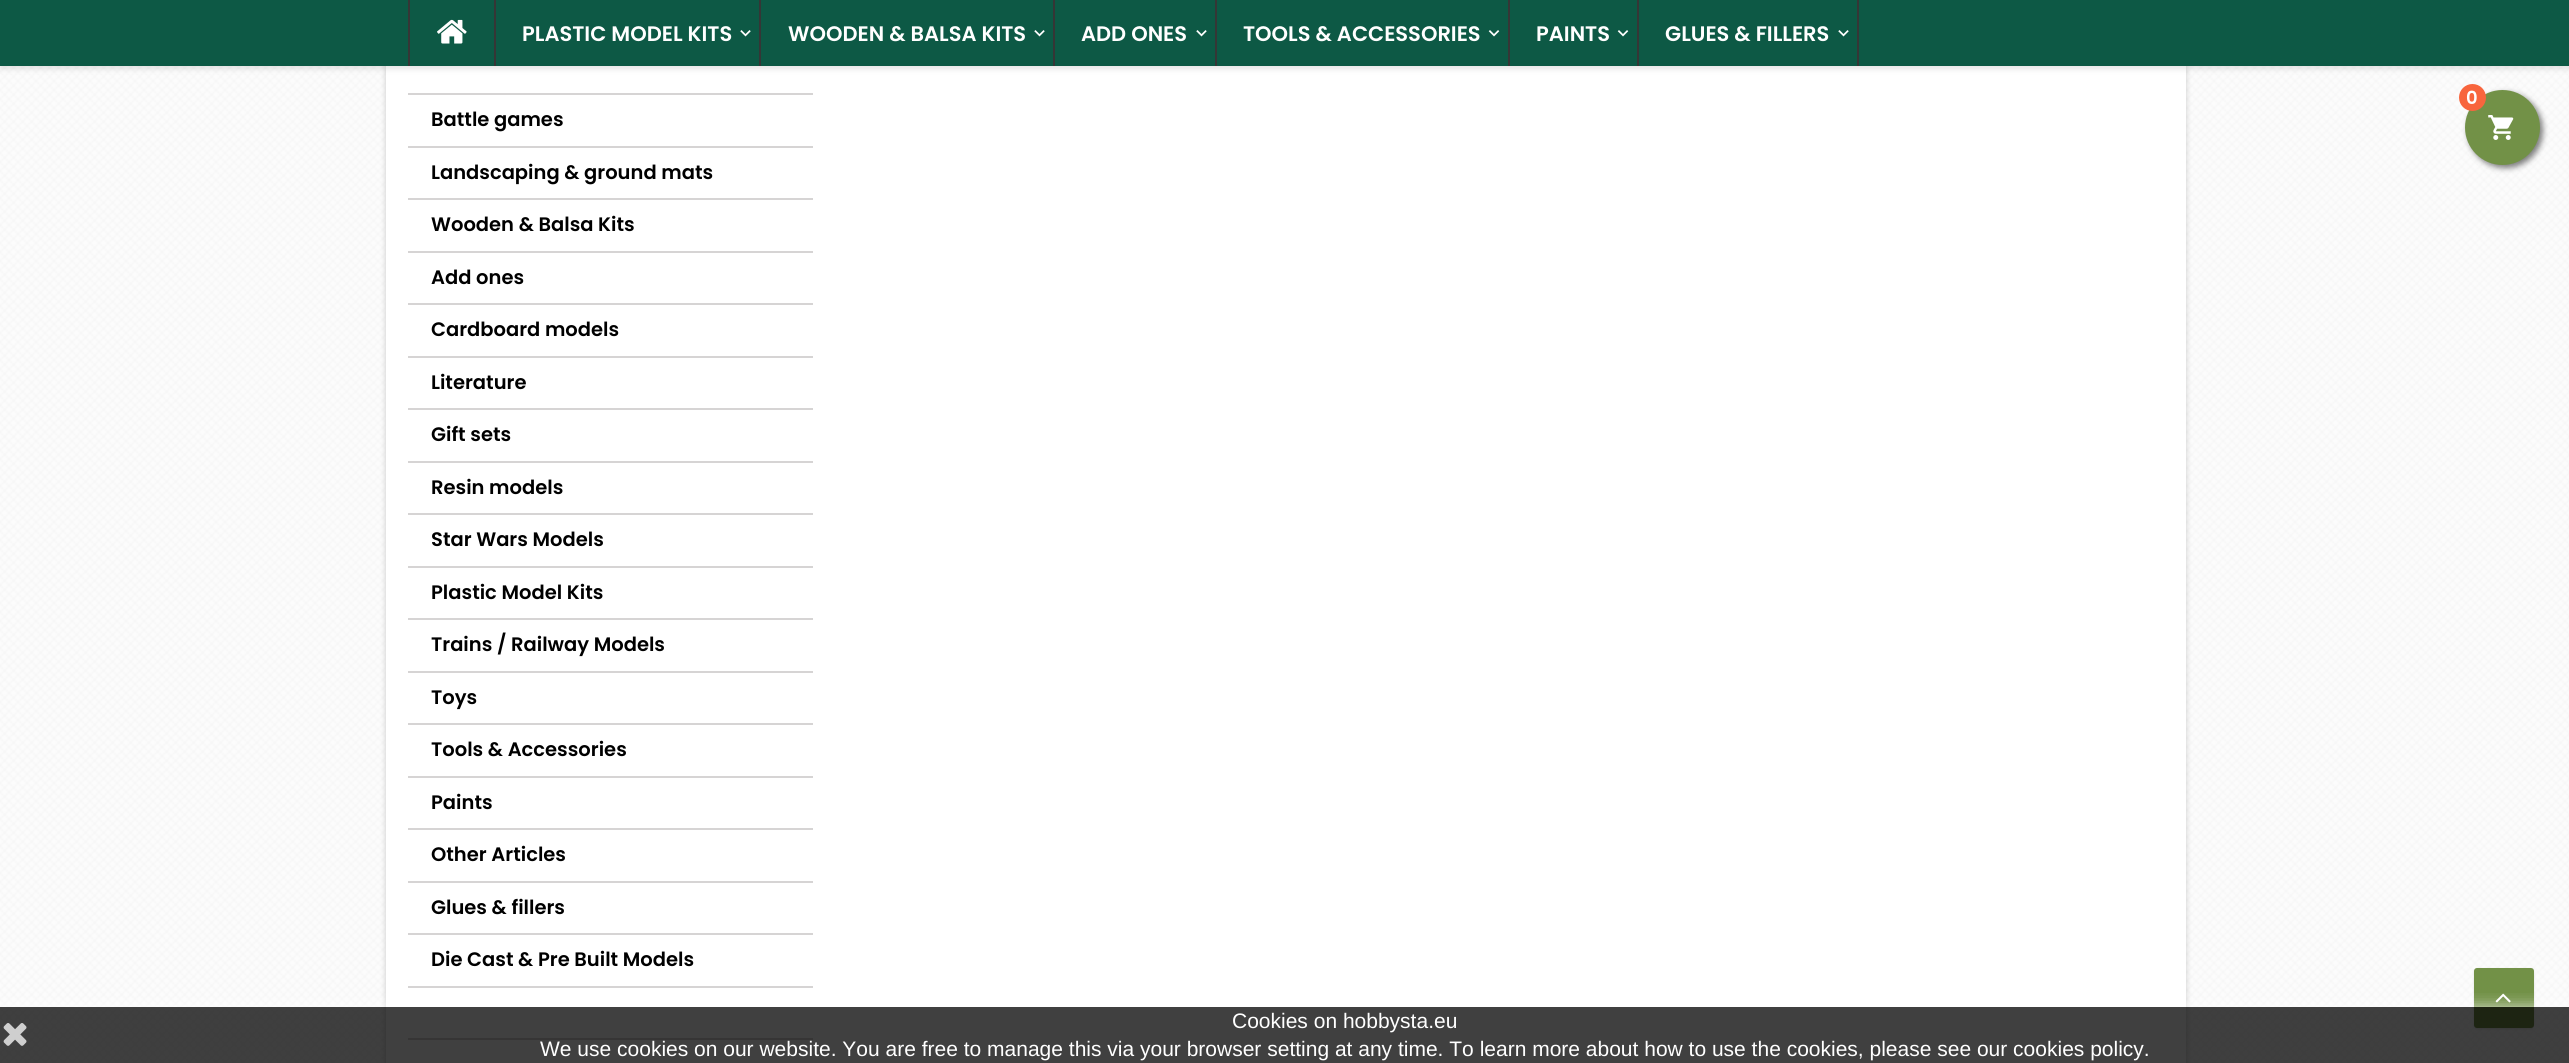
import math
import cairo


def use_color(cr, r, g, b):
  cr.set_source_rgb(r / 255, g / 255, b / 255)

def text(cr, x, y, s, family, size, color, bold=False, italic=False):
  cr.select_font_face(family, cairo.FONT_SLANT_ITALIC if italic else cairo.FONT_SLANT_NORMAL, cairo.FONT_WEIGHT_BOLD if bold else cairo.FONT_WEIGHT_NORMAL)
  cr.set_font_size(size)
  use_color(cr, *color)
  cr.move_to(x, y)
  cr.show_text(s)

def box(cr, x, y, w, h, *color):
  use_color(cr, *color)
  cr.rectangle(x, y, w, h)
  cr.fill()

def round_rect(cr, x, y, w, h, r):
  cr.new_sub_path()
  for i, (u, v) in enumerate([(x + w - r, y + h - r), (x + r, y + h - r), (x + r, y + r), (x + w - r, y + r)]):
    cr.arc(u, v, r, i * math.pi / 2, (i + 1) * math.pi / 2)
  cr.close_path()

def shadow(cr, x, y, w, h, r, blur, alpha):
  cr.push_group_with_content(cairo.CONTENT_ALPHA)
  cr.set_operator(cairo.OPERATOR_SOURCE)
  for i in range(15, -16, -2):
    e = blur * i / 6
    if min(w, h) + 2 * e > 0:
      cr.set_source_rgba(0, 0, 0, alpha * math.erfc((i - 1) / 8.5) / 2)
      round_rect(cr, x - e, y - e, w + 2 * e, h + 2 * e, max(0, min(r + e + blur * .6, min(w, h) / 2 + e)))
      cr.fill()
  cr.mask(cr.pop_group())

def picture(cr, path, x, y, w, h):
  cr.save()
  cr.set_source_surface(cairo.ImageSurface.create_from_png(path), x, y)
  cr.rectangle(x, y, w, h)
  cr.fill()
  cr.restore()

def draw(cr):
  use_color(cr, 255, 255, 255)
  cr.paint()
  picture(cr, "img_01.png", 0, 66, 2569, 997)
  use_color(cr, 0, 0, 0)
  shadow(cr, 386, -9, 1800, 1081, 0, 3, 0.2)
  box(cr, 386, 66, 1800, 997, 255, 255, 255)
  use_color(cr, 0, 0, 0)
  shadow(cr, 0, 3, 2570, 66, 0, 3, 0.1)
  box(cr, 0, 0, 2569, 66, 13, 89, 69)
  box(cr, 408, 0, 2, 66, 54, 54, 54)
  picture(cr, "img_02.png", 437, 19, 30, 25)
  box(cr, 494, 0, 2, 66, 54, 54, 54)
  picture(cr, "img_03.png", 740, 30, 11, 7)
  box(cr, 759, 0, 2, 66, 54, 54, 54)
  picture(cr, "img_03.png", 1034, 30, 11, 7)
  box(cr, 1053, 0, 2, 66, 54, 54, 54)
  picture(cr, "img_03.png", 1196, 30, 11, 7)
  box(cr, 1215, 0, 2, 66, 54, 54, 54)
  picture(cr, "img_04.png", 1488, 30, 12, 7)
  box(cr, 1508, 0, 2, 66, 54, 54, 54)
  picture(cr, "img_04.png", 1617, 30, 12, 7)
  box(cr, 1857, 0, 2, 66, 54, 54, 54)
  box(cr, 1637, 0, 2, 66, 54, 54, 54)
  picture(cr, "img_03.png", 1838, 30, 11, 7)
  use_color(cr, 0, 0, 0)
  shadow(cr, 2468, 93, 75, 75, 37.5, 3, 0.5)
  use_color(cr, 114, 145, 71)
  cr.arc(2502.5, 127.5, 37.5, 0, 2 * math.pi)
  cr.fill()
  use_color(cr, 248, 101, 61)
  cr.arc(2472.5, 97.5, 13.5, 0, 2 * math.pi)
  cr.fill()
  picture(cr, "img_05.png", 2488, 115, 26, 25)
  box(cr, 408, 93, 405, 2, 214, 212, 212)
  box(cr, 408, 146, 405, 2, 214, 212, 212)
  box(cr, 408, 198, 405, 2, 214, 212, 212)
  box(cr, 408, 251, 405, 2, 214, 212, 212)
  box(cr, 408, 303, 405, 2, 214, 212, 212)
  box(cr, 408, 356, 405, 2, 214, 212, 212)
  box(cr, 408, 408, 405, 2, 214, 212, 212)
  box(cr, 408, 461, 405, 2, 214, 212, 212)
  box(cr, 408, 513, 405, 2, 214, 212, 212)
  box(cr, 408, 566, 405, 2, 214, 212, 212)
  box(cr, 408, 618, 405, 2, 214, 212, 212)
  box(cr, 408, 671, 405, 2, 214, 212, 212)
  box(cr, 408, 723, 405, 2, 214, 212, 212)
  box(cr, 408, 776, 405, 2, 214, 212, 212)
  box(cr, 408, 828, 405, 2, 214, 212, 212)
  box(cr, 408, 881, 405, 2, 214, 212, 212)
  box(cr, 408, 933, 405, 2, 214, 212, 212)
  box(cr, 408, 986, 405, 2, 214, 212, 212)
  box(cr, 408, 1038, 405, 2, 214, 212, 212)
  use_color(cr, 0, 0, 0)
  shadow(cr, 2474, 969, 60, 60, 3, 1, 0.1)
  use_color(cr, 114, 145, 71)
  round_rect(cr, 2474, 968, 60, 60, 3)
  cr.fill()
  picture(cr, "img_07.png", 2495, 993, 16, 10)
  cr.save()
  cr.rectangle(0, 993, 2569, 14)
  cr.clip()
  use_color(cr, 255, 255, 255)
  shadow(cr, 0, 1007, 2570, 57, 0, 7.5, 0.75)
  cr.restore()
  cr.set_source_rgba(0, 0, 0, 0.75)
  cr.rectangle(0, 1007, 2569, 56)
  cr.fill()
  picture(cr, "img_06.png", 3, 1023, 24, 23)
  text(cr, 522, 41, "PLASTIC MODEL KITS", "Poppins SemiBold", 21, (255, 255, 255))
  text(cr, 788, 41, "WOODEN & BALSA KITS", "Poppins SemiBold", 21, (255, 255, 255))
  text(cr, 1081, 41, "ADD ONES", "Poppins SemiBold", 21, (255, 255, 255))
  text(cr, 1243, 41, "TOOLS & ACCESSORIES", "Poppins SemiBold", 21, (255, 255, 255))
  text(cr, 1536, 41, "PAINTS", "Poppins SemiBold", 21, (255, 255, 255))
  text(cr, 1665, 41, "GLUES & FILLERS", "Poppins SemiBold", 21, (255, 255, 255))
  text(cr, 2466, 104, "0", "Poppins SemiBold", 18, (255, 255, 255))
  text(cr, 431, 126, "Battle games", "Poppins SemiBold", 19.5, (0, 0, 0))
  text(cr, 431, 179, "Landscaping & ground mats", "Poppins SemiBold", 19.5, (0, 0, 0))
  text(cr, 431, 231, "Wooden & Balsa Kits", "Poppins SemiBold", 19.5, (0, 0, 0))
  text(cr, 431, 284, "Add ones", "Poppins SemiBold", 19.5, (0, 0, 0))
  text(cr, 431, 336, "Cardboard models", "Poppins SemiBold", 19.5, (0, 0, 0))
  text(cr, 431, 389, "Literature", "Poppins SemiBold", 19.5, (0, 0, 0))
  text(cr, 431, 441, "Gift sets", "Poppins SemiBold", 19.5, (0, 0, 0))
  text(cr, 431, 494, "Resin models", "Poppins SemiBold", 19.5, (0, 0, 0))
  text(cr, 431, 546, "Star Wars Models", "Poppins SemiBold", 19.5, (0, 0, 0))
  text(cr, 431, 599, "Plastic Model Kits", "Poppins SemiBold", 19.5, (0, 0, 0))
  text(cr, 431, 651, "Trains / Railway Models", "Poppins SemiBold", 19.5, (0, 0, 0))
  text(cr, 431, 704, "Toys", "Poppins SemiBold", 19.5, (0, 0, 0))
  text(cr, 431, 756, "Tools & Accessories", "Poppins SemiBold", 19.5, (0, 0, 0))
  text(cr, 431, 809, "Paints", "Poppins SemiBold", 19.5, (0, 0, 0))
  text(cr, 431, 861, "Other Articles", "Poppins SemiBold", 19.5, (0, 0, 0))
  text(cr, 431, 914, "Glues & fillers", "Poppins SemiBold", 19.5, (0, 0, 0))
  text(cr, 431, 966, "Die Cast & Pre Built Models", "Poppins SemiBold", 19.5, (0, 0, 0))
  text(cr, 1232, 1028, "Cookies on hobbysta.eu", "Liberation Sans", 21, (255, 255, 255))
  text(cr, 540, 1056, "We use cookies on our website. You are free to manage this via your browser setting at any time. To learn more about how to use the cookies, please see our cookies policy.", "Liberation Sans", 21, (255, 255, 255))


surface = cairo.ImageSurface(cairo.FORMAT_RGB24, 2569, 1063)
cr = cairo.Context(surface)
options = cairo.FontOptions()
options.set_hint_metrics(cairo.HINT_METRICS_OFF)
options.set_hint_style(cairo.HINT_STYLE_NONE)
cr.set_font_options(options)
cr.set_miter_limit(4)
draw(cr)
surface.write_to_png("out.png")
